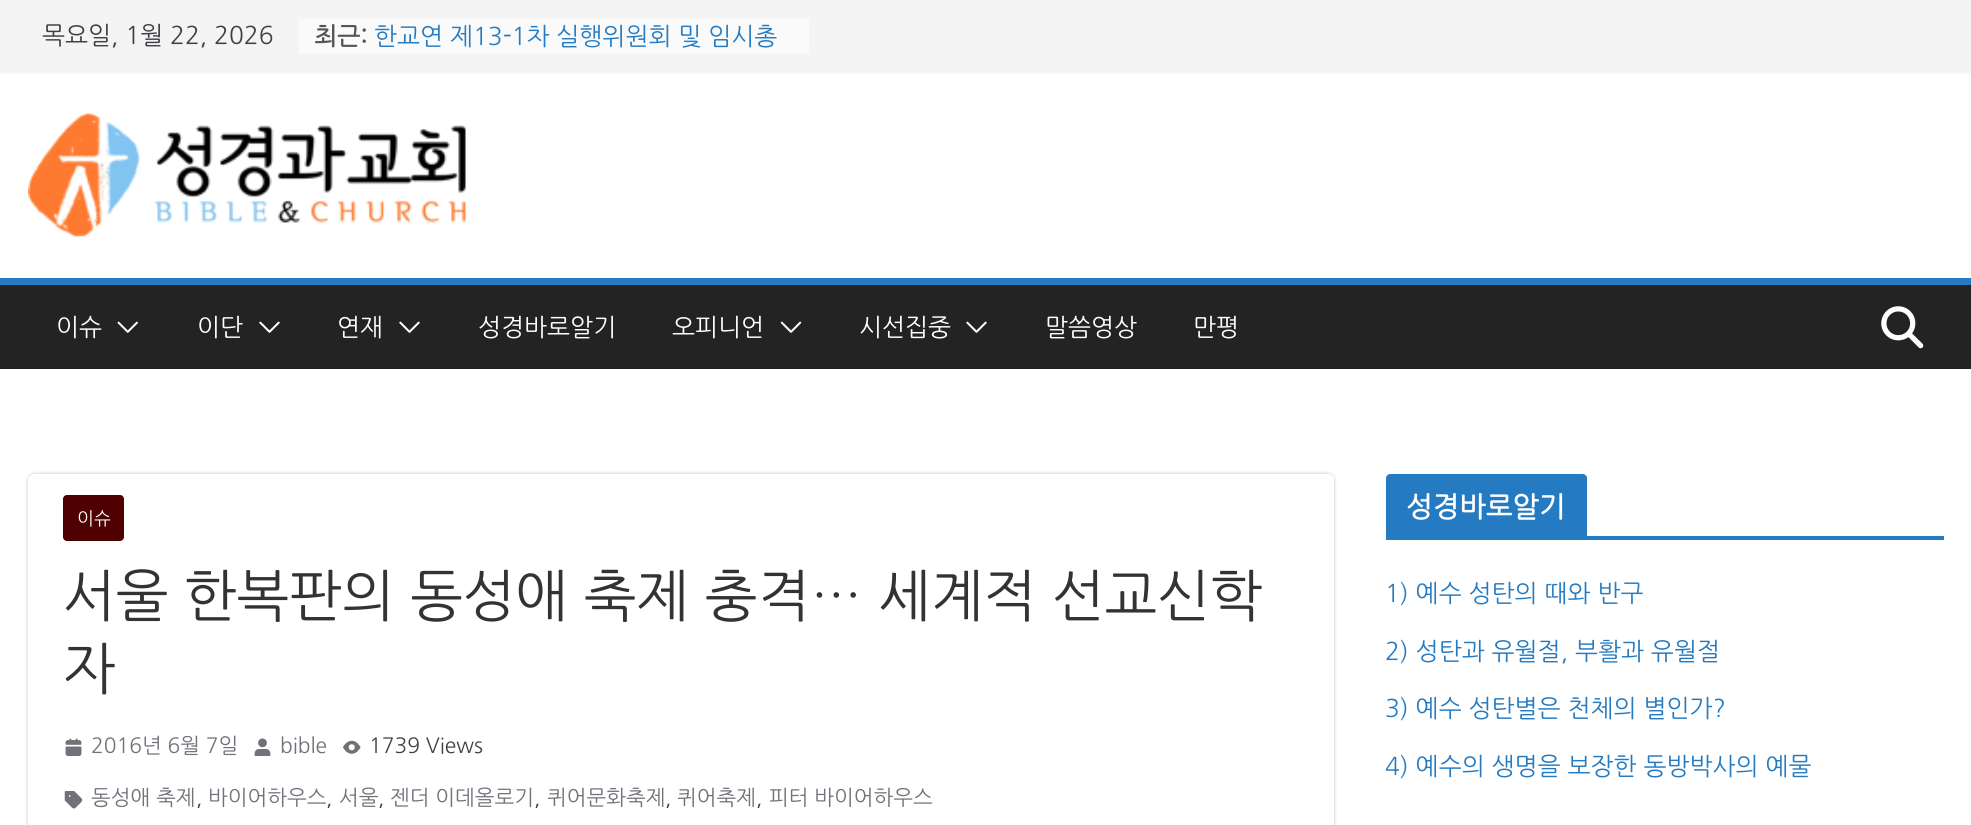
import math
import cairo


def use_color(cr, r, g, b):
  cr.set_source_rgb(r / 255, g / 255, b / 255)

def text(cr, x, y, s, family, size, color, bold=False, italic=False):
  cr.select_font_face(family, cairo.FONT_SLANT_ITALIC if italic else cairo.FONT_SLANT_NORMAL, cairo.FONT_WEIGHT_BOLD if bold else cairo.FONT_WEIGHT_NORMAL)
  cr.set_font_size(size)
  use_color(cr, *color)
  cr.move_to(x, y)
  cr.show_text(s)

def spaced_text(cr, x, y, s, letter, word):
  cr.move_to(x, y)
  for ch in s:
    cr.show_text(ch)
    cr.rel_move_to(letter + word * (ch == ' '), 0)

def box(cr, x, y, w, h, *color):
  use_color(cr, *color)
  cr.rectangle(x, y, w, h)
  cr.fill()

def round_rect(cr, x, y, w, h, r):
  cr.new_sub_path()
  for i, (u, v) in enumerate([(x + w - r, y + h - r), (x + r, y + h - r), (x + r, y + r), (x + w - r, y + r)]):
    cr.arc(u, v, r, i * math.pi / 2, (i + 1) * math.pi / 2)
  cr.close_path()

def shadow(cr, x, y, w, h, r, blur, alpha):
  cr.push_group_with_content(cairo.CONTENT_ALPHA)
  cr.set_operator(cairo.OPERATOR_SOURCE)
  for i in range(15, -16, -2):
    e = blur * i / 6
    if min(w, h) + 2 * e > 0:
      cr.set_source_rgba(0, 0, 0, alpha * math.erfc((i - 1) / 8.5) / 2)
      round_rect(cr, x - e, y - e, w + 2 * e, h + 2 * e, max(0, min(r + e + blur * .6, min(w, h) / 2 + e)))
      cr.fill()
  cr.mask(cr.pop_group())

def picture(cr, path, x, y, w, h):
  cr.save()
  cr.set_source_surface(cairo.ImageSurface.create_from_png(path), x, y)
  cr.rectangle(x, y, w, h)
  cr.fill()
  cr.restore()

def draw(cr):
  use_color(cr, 255, 255, 255)
  cr.paint()
  use_color(cr, 0, 0, 0)
  shadow(cr, 0, 0, 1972, 72, 0, 2, 0.1)
  box(cr, 0, 0, 1971, 72, 244, 244, 245)
  box(cr, 299, 19, 510, 35, 250, 250, 250)
  picture(cr, "img_01.png", 28, 113, 438, 124)
  box(cr, 0, 285, 1971, 84, 35, 35, 35)
  box(cr, 0, 278, 1971, 7, 37, 123, 193)
  picture(cr, "img_02.png", 117, 321, 21, 12)
  picture(cr, "img_03.png", 259, 321, 21, 12)
  picture(cr, "img_03.png", 399, 321, 21, 12)
  picture(cr, "img_04.png", 780, 321, 22, 12)
  picture(cr, "img_03.png", 966, 321, 21, 12)
  picture(cr, "img_05.png", 1881, 306, 43, 43)
  cr.save()
  cr.set_fill_rule(cairo.FILL_RULE_EVEN_ODD)
  cr.new_path()
  cr.move_to(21, 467)
  cr.line_to(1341, 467)
  cr.line_to(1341, 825)
  cr.line_to(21, 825)
  cr.close_path()
  cr.move_to(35, 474)
  cr.line_to(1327, 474)
  cr.curve_to(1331, 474, 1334, 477, 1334, 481)
  cr.line_to(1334, 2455)
  cr.curve_to(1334, 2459, 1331, 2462, 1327, 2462)
  cr.line_to(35, 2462)
  cr.curve_to(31, 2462, 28, 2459, 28, 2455)
  cr.line_to(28, 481)
  cr.curve_to(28, 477, 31, 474, 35, 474)
  cr.close_path()
  cr.clip()
  use_color(cr, 0, 0, 0)
  shadow(cr, 28, 474, 1306, 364, 7, 2, 0.24)
  cr.restore()
  use_color(cr, 79, 0, 0)
  round_rect(cr, 63, 495, 61, 46, 4)
  cr.fill()
  picture(cr, "img_06.png", 65, 738, 17, 18)
  picture(cr, "img_07.png", 254, 738, 17, 18)
  picture(cr, "img_08.png", 343, 740, 18, 14)
  picture(cr, "img_09.png", 64, 791, 19, 18)
  box(cr, 1386, 536, 558, 4, 37, 123, 193)
  cr.new_path()
  cr.move_to(1390, 474)
  cr.line_to(1583, 474)
  cr.curve_to(1585, 474, 1587, 476, 1587, 478)
  cr.line_to(1587, 536)
  cr.line_to(1386, 536)
  cr.line_to(1386, 478)
  cr.curve_to(1386, 476, 1388, 474, 1390, 474)
  cr.close_path()
  cr.fill()
  text(cr, 42, 44, "목요일, 1월 22, 2026", "NanumGothic", 24.5, (63, 63, 70))
  text(cr, 314, 45, "최근:", "NanumGothic", 24.5, (85, 85, 85), bold=True)
  text(cr, 374, 45, "한교연 제13-1차 실행위원회 및 임시총", "NanumGothic", 24.5, (37, 123, 193))
  text(cr, 56, 336, "이슈", "NanumGothic", 24.5, (255, 255, 255))
  text(cr, 197, 336, "이단", "NanumGothic", 24.5, (255, 255, 255))
  text(cr, 337, 336, "연재", "NanumGothic", 24.5, (255, 255, 255))
  text(cr, 478, 336, "성경바로알기", "NanumGothic", 24.5, (255, 255, 255))
  text(cr, 672, 336, "오피니언", "NanumGothic", 24.5, (255, 255, 255))
  text(cr, 859, 336, "시선집중", "NanumGothic", 24.5, (255, 255, 255))
  text(cr, 1045, 336, "말씀영상", "NanumGothic", 24.5, (255, 255, 255))
  text(cr, 1193, 336, "만평", "NanumGothic", 24.5, (255, 255, 255))
  text(cr, 77, 525, "이슈", "NanumGothic", 18, (255, 255, 255))
  text(cr, 63, 616, "서울 한복판의 동성애 축제 충격… 세계적 선교신학", "NanumGothic", 56, (51, 51, 51))
  text(cr, 63, 689, "자", "NanumGothic", 56, (51, 51, 51))
  text(cr, 91, 753, "2016년 6월 7일", "NanumGothic", 21, (113, 113, 122))
  text(cr, 280, 753, "bible", "NanumGothic", 21, (113, 113, 122))
  text(cr, 369, 753, "1739 Views", "NanumGothic", 21, (63, 63, 70))
  text(cr, 91, 805, "동성애 축제", "NanumGothic", 21, (113, 113, 122))
  text(cr, 196, 805, ",", "NanumGothic", 21, (63, 63, 70))
  text(cr, 208, 805, "바이어하우스", "NanumGothic", 21, (113, 113, 122))
  text(cr, 326, 805, ",", "NanumGothic", 21, (63, 63, 70))
  text(cr, 339, 805, "서울", "NanumGothic", 21, (113, 113, 122))
  text(cr, 378, 805, ",", "NanumGothic", 21, (63, 63, 70))
  text(cr, 390, 805, "젠더 이데올로기", "NanumGothic", 21, (113, 113, 122))
  text(cr, 534, 805, ",", "NanumGothic", 21, (63, 63, 70))
  text(cr, 547, 805, "퀴어문화축제", "NanumGothic", 21, (113, 113, 122))
  text(cr, 665, 805, ",", "NanumGothic", 21, (63, 63, 70))
  text(cr, 677, 805, "퀴어축제", "NanumGothic", 21, (113, 113, 122))
  text(cr, 756, 805, ",", "NanumGothic", 21, (63, 63, 70))
  text(cr, 769, 805, "피터 바이어하우스", "NanumGothic", 21, (113, 113, 122))
  cr.select_font_face("NanumGothic", cairo.FONT_SLANT_NORMAL, cairo.FONT_WEIGHT_BOLD)
  cr.set_font_size(28)
  use_color(cr, 255, 255, 255)
  spaced_text(cr, 1406, 517, "성경바로알기", 0.25, 0)
  text(cr, 1385, 602, "1) 예수 성탄의 때와 반구", "NanumGothic", 24.5, (37, 123, 193))
  text(cr, 1385, 660, "2) 성탄과 유월절, 부활과 유월절", "NanumGothic", 24.5, (37, 123, 193))
  text(cr, 1385, 717, "3) 예수 성탄별은 천체의 별인가?", "NanumGothic", 24.5, (37, 123, 193))
  text(cr, 1385, 775, "4) 예수의 생명을 보장한 동방박사의 예물", "NanumGothic", 24.5, (37, 123, 193))


surface = cairo.ImageSurface(cairo.FORMAT_RGB24, 1971, 825)
cr = cairo.Context(surface)
options = cairo.FontOptions()
options.set_hint_metrics(cairo.HINT_METRICS_OFF)
options.set_hint_style(cairo.HINT_STYLE_NONE)
cr.set_font_options(options)
cr.set_miter_limit(4)
draw(cr)
surface.write_to_png("out.png")
